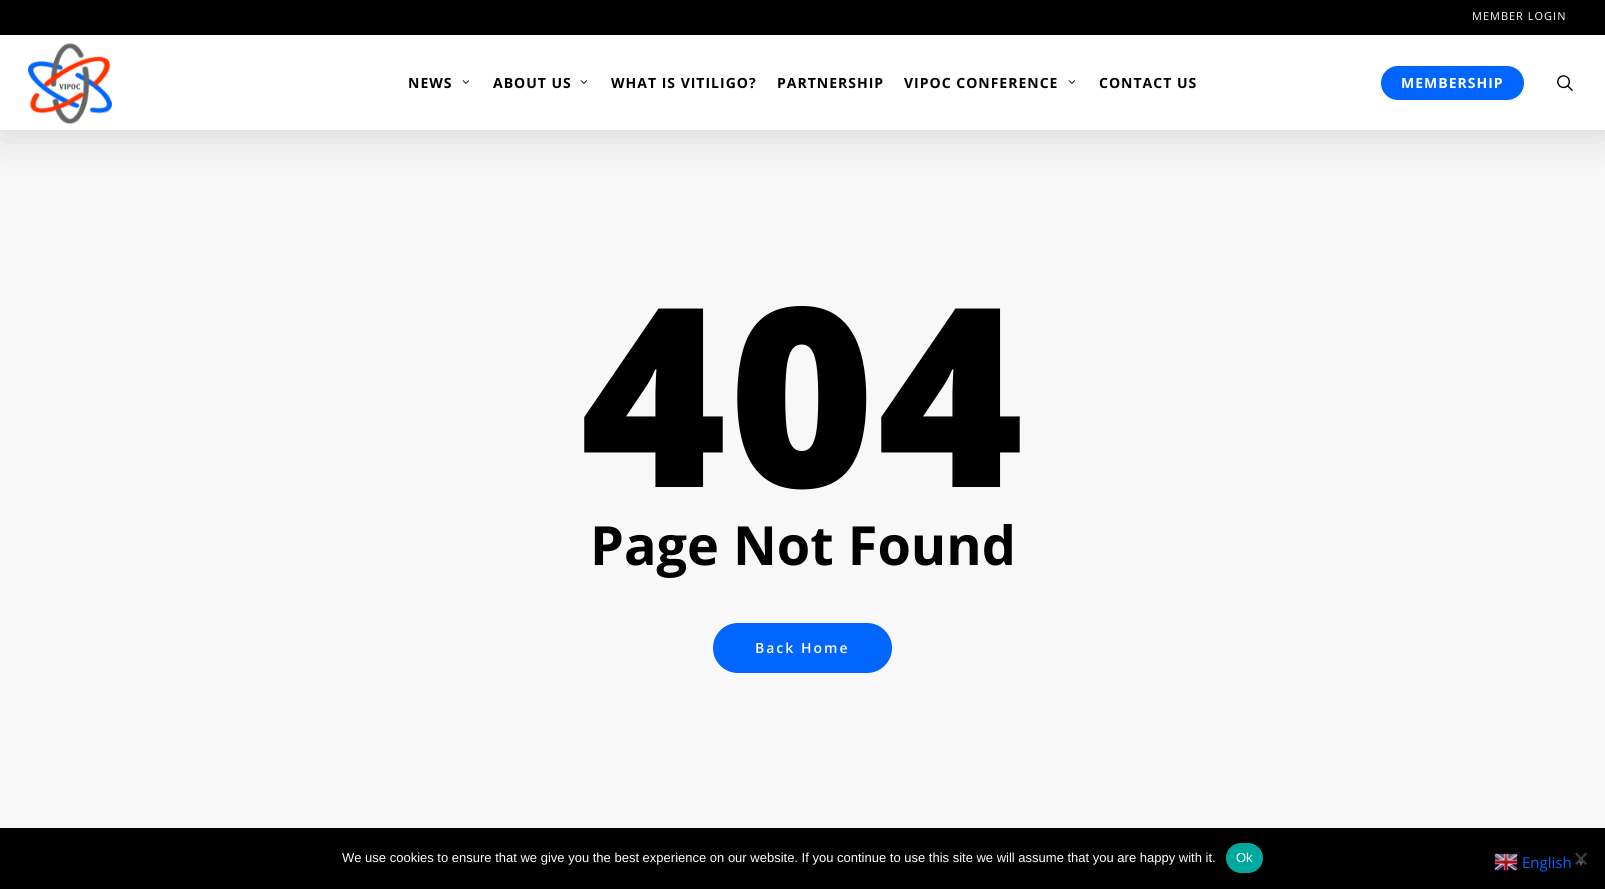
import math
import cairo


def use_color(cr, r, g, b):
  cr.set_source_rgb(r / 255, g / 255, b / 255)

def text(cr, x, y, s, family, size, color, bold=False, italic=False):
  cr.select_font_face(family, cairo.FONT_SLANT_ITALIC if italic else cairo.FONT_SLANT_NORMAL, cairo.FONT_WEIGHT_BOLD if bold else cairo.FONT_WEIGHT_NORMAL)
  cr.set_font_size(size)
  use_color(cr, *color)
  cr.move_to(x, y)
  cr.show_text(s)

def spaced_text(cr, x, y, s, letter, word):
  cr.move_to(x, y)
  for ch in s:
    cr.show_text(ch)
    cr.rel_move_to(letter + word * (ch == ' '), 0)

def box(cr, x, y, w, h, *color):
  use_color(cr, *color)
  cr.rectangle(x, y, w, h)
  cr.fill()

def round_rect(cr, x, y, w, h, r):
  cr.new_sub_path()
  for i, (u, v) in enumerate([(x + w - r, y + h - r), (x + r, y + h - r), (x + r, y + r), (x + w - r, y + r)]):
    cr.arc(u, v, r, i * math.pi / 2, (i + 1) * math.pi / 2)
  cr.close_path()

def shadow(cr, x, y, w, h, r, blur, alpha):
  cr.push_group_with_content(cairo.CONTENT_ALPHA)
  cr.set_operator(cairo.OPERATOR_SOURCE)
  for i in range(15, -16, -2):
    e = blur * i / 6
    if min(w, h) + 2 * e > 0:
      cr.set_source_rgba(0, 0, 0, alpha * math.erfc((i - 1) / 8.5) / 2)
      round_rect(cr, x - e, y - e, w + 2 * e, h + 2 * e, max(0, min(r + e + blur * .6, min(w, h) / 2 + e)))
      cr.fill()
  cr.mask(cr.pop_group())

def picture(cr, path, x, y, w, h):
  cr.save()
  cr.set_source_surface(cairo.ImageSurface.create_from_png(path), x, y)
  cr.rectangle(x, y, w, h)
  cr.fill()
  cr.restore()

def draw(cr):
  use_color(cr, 248, 248, 248)
  cr.paint()
  use_color(cr, 0, 0, 0)
  shadow(cr, 0, 3, 1605, 130, 0, 22.5, 0.15)
  box(cr, 0, 35, 1605, 95, 255, 255, 255)
  box(cr, 0, 0, 1605, 35, 0, 0, 0)
  picture(cr, "img_01.png", 28, 43, 84, 82)
  picture(cr, "img_02.png", 462, 80, 7, 4)
  picture(cr, "img_02.png", 580, 80, 7, 4)
  picture(cr, "img_02.png", 1068, 80, 7, 4)
  use_color(cr, 0, 102, 255)
  round_rect(cr, 1381, 66, 143, 34, 17)
  cr.fill()
  picture(cr, "img_03.png", 1557, 75, 16, 16)
  round_rect(cr, 713, 623, 179, 50, 25)
  cr.fill()
  box(cr, 0, 828, 1605, 61, 0, 0, 0)
  use_color(cr, 0, 169, 157)
  round_rect(cr, 1226, 843, 37, 30, 15)
  cr.fill()
  use_color(cr, 64, 64, 64)
  cr.new_path()
  cr.move_to(1585.5, 852.5)
  cr.line_to(1587, 854)
  cr.line_to(1576.5, 865)
  cr.line_to(1575, 863.5)
  cr.close_path()
  cr.fill()
  cr.new_path()
  cr.move_to(1575, 854)
  cr.line_to(1576.5, 852.5)
  cr.line_to(1587, 863.5)
  cr.line_to(1585.5, 865)
  cr.close_path()
  cr.fill()
  picture(cr, "img_04.png", 1494, 853, 24, 18)
  cr.select_font_face("Open Sans")
  cr.set_font_size(11)
  use_color(cr, 255, 255, 255)
  spaced_text(cr, 1472, 20, "MEMBER LOGIN", 1, 0)
  cr.select_font_face("Open Sans", cairo.FONT_SLANT_NORMAL, cairo.FONT_WEIGHT_BOLD)
  cr.set_font_size(14)
  use_color(cr, 0, 0, 0)
  spaced_text(cr, 408, 88, "NEWS", 1, 0)
  spaced_text(cr, 493, 88, "ABOUT US", 1, 0)
  spaced_text(cr, 611, 88, "WHAT IS VITILIGO?", 1, 0)
  spaced_text(cr, 777, 88, "PARTNERSHIP", 1, 0)
  spaced_text(cr, 904, 88, "VIPOC CONFERENCE", 1, 0)
  spaced_text(cr, 1099, 88, "CONTACT US", 1, 0)
  use_color(cr, 255, 255, 255)
  spaced_text(cr, 1401, 88, "MEMBERSHIP", 1, 0)
  cr.select_font_face("Open Sans ExtraBold")
  cr.set_font_size(250)
  use_color(cr, 0, 0, 0)
  spaced_text(cr, 580, 487, "404", 2, 0)
  text(cr, 590, 565, "Page Not Found", "Open Sans", 54, (0, 0, 0), bold=True)
  cr.select_font_face("Open Sans SemiBold")
  cr.set_font_size(14)
  use_color(cr, 255, 255, 255)
  spaced_text(cr, 755, 653, "Back Home", 2, 0)
  text(cr, 342, 862, "We use cookies to ensure that we give you the best experience on our website. If you continue to use this site we will assume that you are happy with it.", "Liberation Sans", 13, (255, 255, 255))
  text(cr, 1236, 862, "Ok", "Liberation Sans", 13, (255, 255, 255))
  text(cr, 1522, 868, "English", "Open Sans", 15, (0, 102, 255))
  text(cr, 1577, 866, "▼", "Liberation Serif", 8, (102, 102, 102), bold=True)


surface = cairo.ImageSurface(cairo.FORMAT_RGB24, 1605, 889)
cr = cairo.Context(surface)
options = cairo.FontOptions()
options.set_hint_metrics(cairo.HINT_METRICS_OFF)
options.set_hint_style(cairo.HINT_STYLE_NONE)
cr.set_font_options(options)
cr.set_miter_limit(4)
draw(cr)
surface.write_to_png("out.png")
